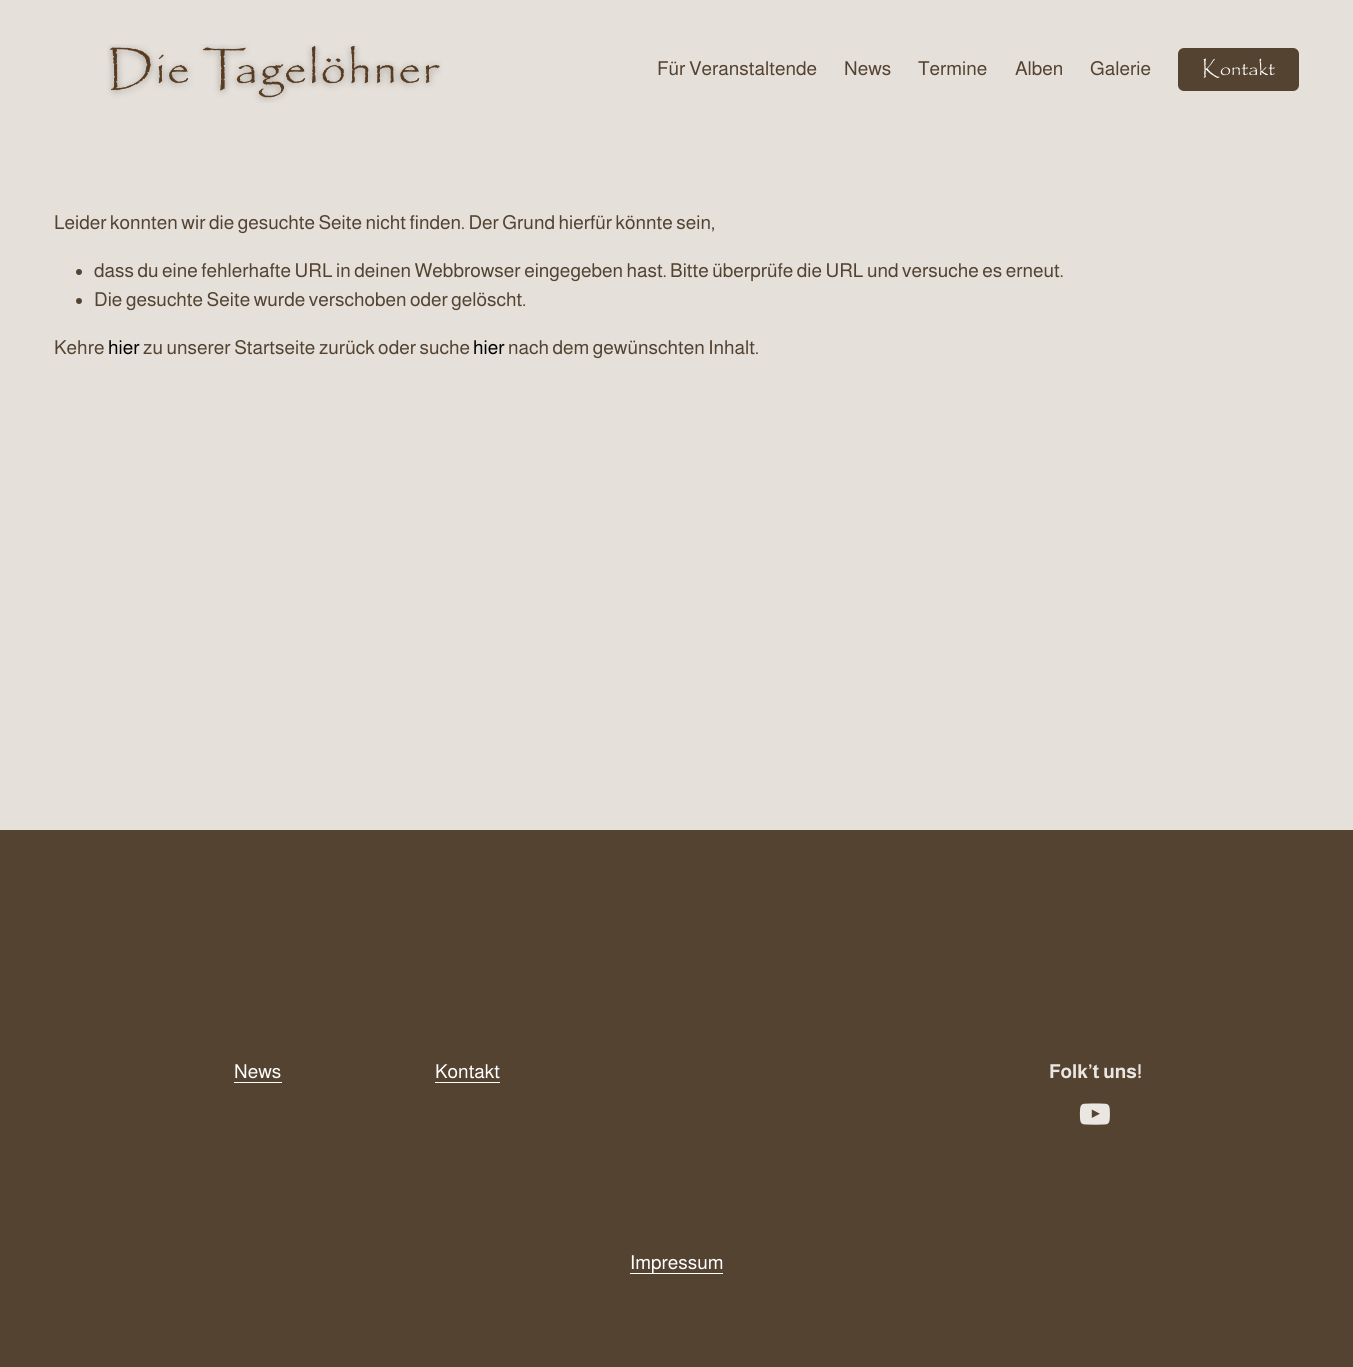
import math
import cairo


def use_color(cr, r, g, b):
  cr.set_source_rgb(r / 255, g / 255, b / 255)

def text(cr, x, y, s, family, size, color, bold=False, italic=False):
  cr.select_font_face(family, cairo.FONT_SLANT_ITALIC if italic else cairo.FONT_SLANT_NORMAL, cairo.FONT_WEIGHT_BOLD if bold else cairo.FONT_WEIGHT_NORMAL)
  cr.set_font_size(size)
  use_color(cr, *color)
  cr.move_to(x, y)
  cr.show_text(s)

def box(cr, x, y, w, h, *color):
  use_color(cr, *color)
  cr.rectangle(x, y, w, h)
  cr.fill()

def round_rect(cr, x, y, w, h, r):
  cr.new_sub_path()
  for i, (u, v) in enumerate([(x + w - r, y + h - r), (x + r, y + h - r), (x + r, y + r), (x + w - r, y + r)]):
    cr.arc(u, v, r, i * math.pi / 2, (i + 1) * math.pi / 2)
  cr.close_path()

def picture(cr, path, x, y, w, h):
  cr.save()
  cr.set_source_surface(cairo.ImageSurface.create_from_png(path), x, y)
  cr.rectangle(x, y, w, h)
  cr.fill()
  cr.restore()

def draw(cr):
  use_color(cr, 229, 224, 218)
  cr.paint()
  picture(cr, "img_01.png", 107, 44, 335, 59)
  use_color(cr, 84, 67, 48)
  round_rect(cr, 1178, 48, 121, 43, 6)
  cr.fill()
  use_color(cr, 84, 67, 49)
  cr.arc(79, 272, 3, 0, 2 * math.pi)
  cr.fill()
  cr.arc(79, 301, 3, 0, 2 * math.pi)
  cr.fill()
  box(cr, 0, 830, 1353, 537, 84, 67, 49)
  box(cr, 234, 1082, 48, 1, 255, 255, 255)
  box(cr, 435, 1082, 65, 1, 255, 255, 255)
  picture(cr, "img_02.png", 1079, 1103, 31, 22)
  box(cr, 630, 1273, 93, 1, 255, 255, 255)
  text(cr, 657, 75, "Für Veranstaltende", "Almarai", 19.25, (84, 67, 49))
  text(cr, 844, 75, "News", "Almarai", 19.25, (84, 67, 49))
  text(cr, 918, 75, "Termine", "Almarai", 19.25, (84, 67, 49))
  text(cr, 1015, 75, "Alben", "Almarai", 19.25, (84, 67, 49))
  text(cr, 1090, 75, "Galerie", "Almarai", 19.25, (84, 67, 49))
  text(cr, 1202, 75, "Kontakt", "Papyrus", 20, (255, 255, 255))
  text(cr, 54, 229, "Leider konnten wir die gesuchte Seite nicht finden. Der Grund hierfür könnte sein,", "Almarai", 19.25, (84, 67, 49))
  text(cr, 94, 277, "dass du eine fehlerhafte URL in deinen Webbrowser eingegeben hast. Bitte überprüfe die URL und versuche es erneut.", "Almarai", 19.25, (84, 67, 49))
  text(cr, 94, 306, "Die gesuchte Seite wurde verschoben oder gelöscht.", "Almarai", 19.25, (84, 67, 49))
  text(cr, 54, 354, "Kehre", "Almarai", 19.25, (84, 67, 49))
  text(cr, 108, 354, "hier", "Almarai", 19.25, (0, 0, 0))
  text(cr, 143, 354, "zu unserer Startseite zurück oder suche", "Almarai", 19.25, (84, 67, 49))
  text(cr, 473, 354, "hier", "Almarai", 19.25, (0, 0, 0))
  text(cr, 508, 354, "nach dem gewünschten Inhalt.", "Almarai", 19.25, (84, 67, 49))
  text(cr, 234, 1078, "News", "Almarai", 19.25, (255, 255, 255))
  text(cr, 435, 1078, "Kontakt", "Almarai", 19.25, (255, 255, 255))
  text(cr, 1049, 1078, "Folk’t uns!", "Almarai", 19.25, (234, 230, 225), bold=True)
  text(cr, 630, 1269, "Impressum", "Almarai", 19.25, (255, 255, 255))


surface = cairo.ImageSurface(cairo.FORMAT_RGB24, 1353, 1367)
cr = cairo.Context(surface)
options = cairo.FontOptions()
options.set_hint_metrics(cairo.HINT_METRICS_OFF)
options.set_hint_style(cairo.HINT_STYLE_NONE)
cr.set_font_options(options)
cr.set_miter_limit(4)
draw(cr)
surface.write_to_png("out.png")
